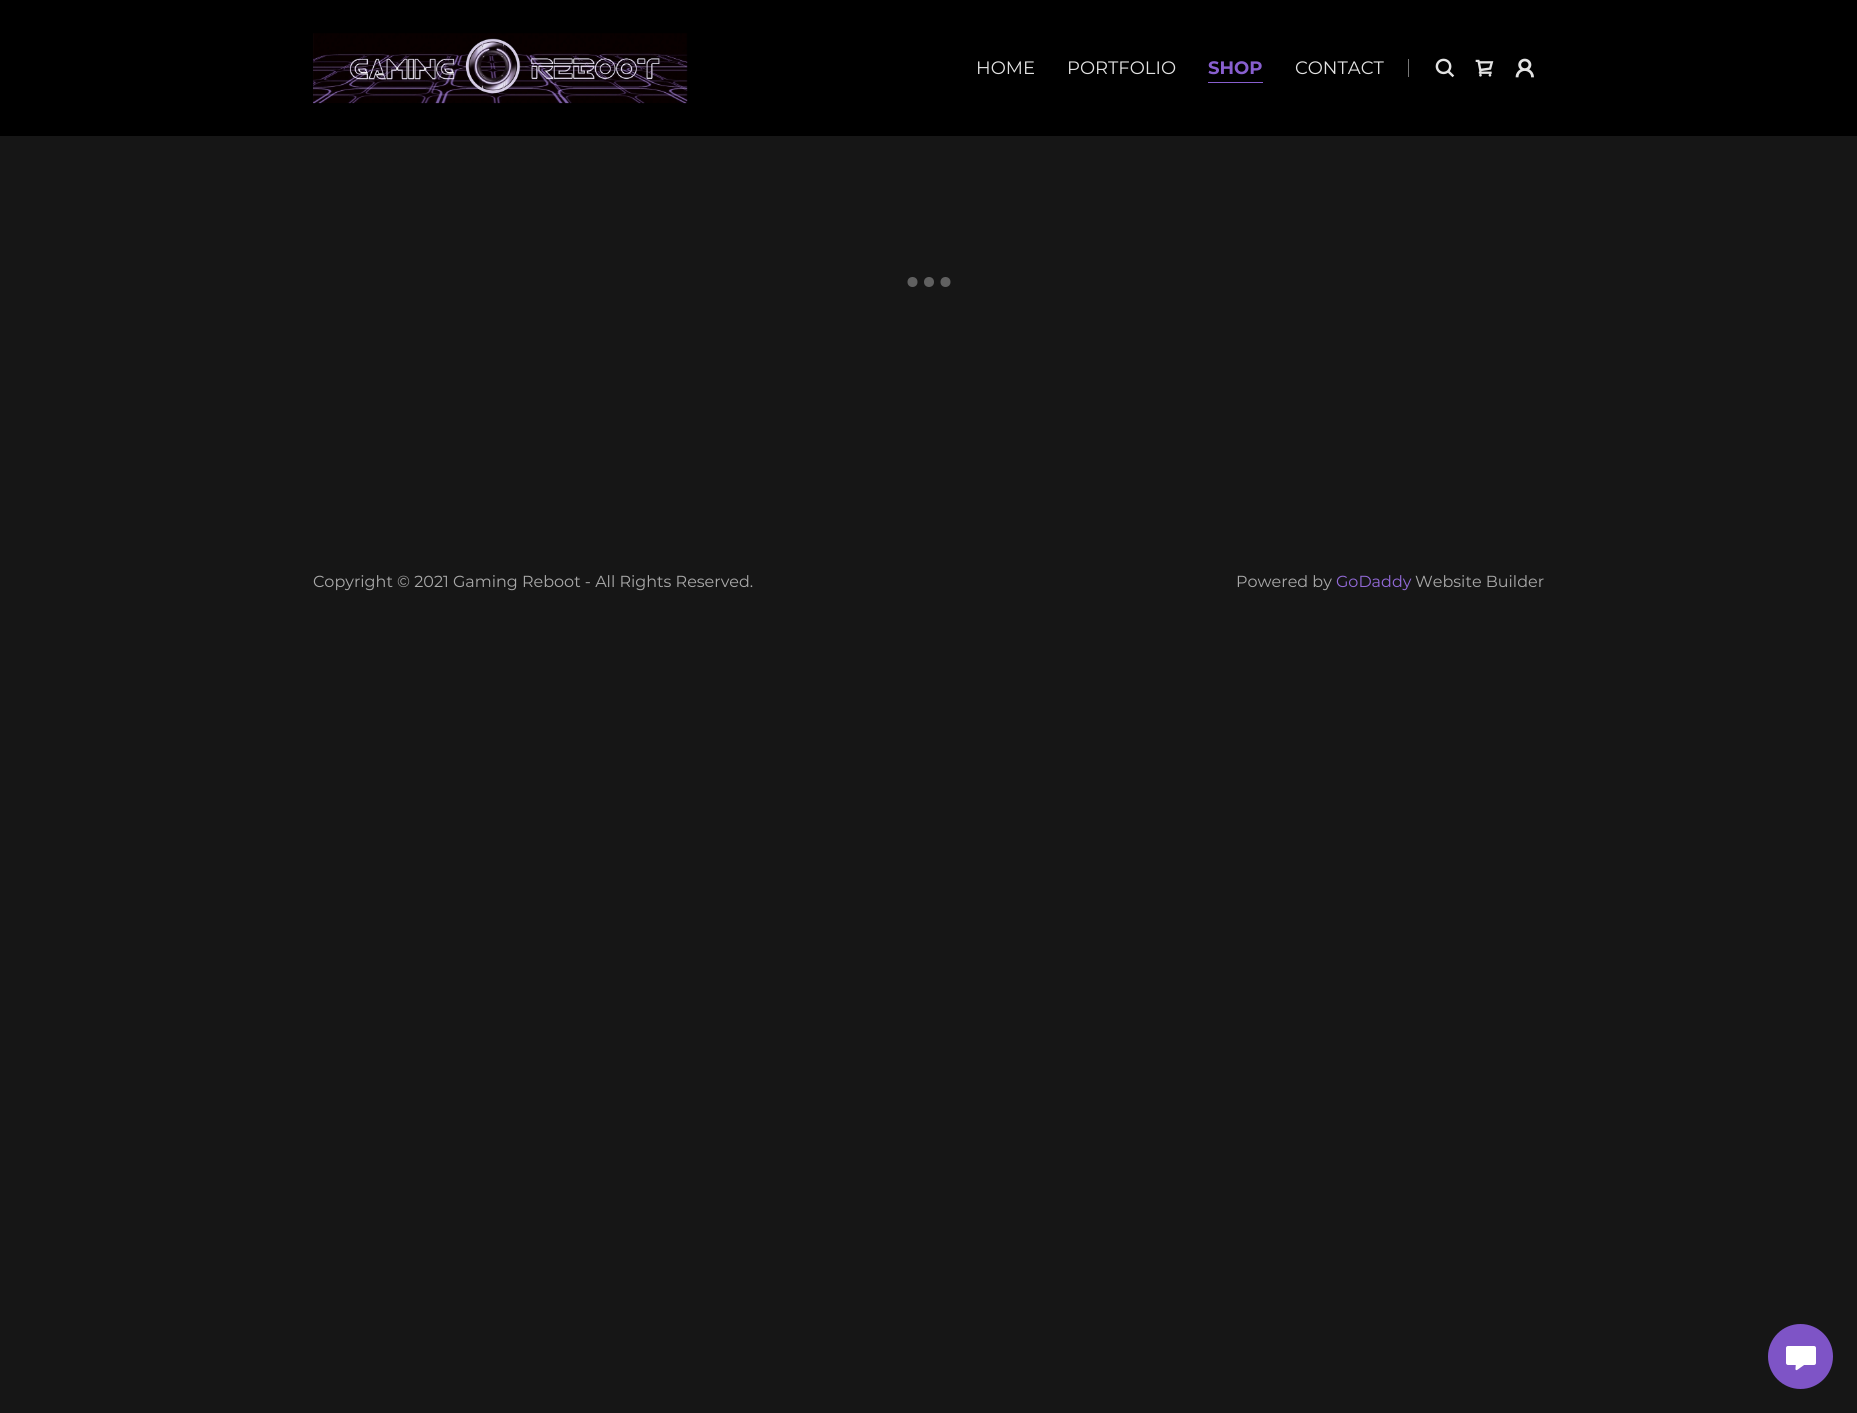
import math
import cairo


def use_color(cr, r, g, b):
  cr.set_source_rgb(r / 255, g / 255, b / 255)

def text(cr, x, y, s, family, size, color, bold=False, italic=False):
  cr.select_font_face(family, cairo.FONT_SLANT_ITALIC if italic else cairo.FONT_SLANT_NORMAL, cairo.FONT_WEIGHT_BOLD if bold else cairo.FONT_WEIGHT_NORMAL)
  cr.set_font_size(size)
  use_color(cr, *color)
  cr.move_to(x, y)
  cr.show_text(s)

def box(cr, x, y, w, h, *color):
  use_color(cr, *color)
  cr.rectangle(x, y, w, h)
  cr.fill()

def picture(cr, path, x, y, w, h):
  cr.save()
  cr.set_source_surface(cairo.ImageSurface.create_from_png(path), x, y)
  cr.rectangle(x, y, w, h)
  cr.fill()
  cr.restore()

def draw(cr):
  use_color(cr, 22, 22, 22)
  cr.paint()
  box(cr, 0, 0, 1857, 136, 0, 0, 0)
  picture(cr, "img_01.png", 313, 33, 375, 71)
  box(cr, 1208, 82, 55, 1, 136, 95, 207)
  box(cr, 1408, 59, 1, 18, 119, 119, 119)
  picture(cr, "img_02.png", 1435, 58, 20, 20)
  picture(cr, "img_03.png", 1475, 59, 19, 18)
  picture(cr, "img_04.png", 1515, 58, 19, 20)
  use_color(cr, 96, 96, 96)
  cr.arc(912.5, 282, 5, 0, 2 * math.pi)
  cr.fill()
  cr.arc(929, 282, 5, 0, 2 * math.pi)
  cr.fill()
  cr.arc(945.5, 282, 5, 0, 2 * math.pi)
  cr.fill()
  use_color(cr, 126, 84, 198)
  cr.arc(1800.5, 1356.5, 32.5, 0, 2 * math.pi)
  cr.fill()
  picture(cr, "img_05.png", 1786, 1346, 30, 25)
  text(cr, 976, 74, "HOME", "Montserrat", 18, (226, 226, 226))
  text(cr, 1067, 74, "PORTFOLIO", "Montserrat", 18, (226, 226, 226))
  text(cr, 1208, 74, "SHOP", "Montserrat", 18, (136, 95, 207), bold=True)
  text(cr, 1295, 74, "CONTACT", "Montserrat", 18, (226, 226, 226))
  text(cr, 313, 587, "Copyright © 2021 Gaming Reboot - All Rights Reserved.", "Montserrat", 16, (169, 169, 169))
  text(cr, 1236, 587, "Powered by", "Montserrat", 16, (169, 169, 169))
  text(cr, 1336, 587, "GoDaddy", "Montserrat", 16, (147, 106, 217))
  text(cr, 1415, 587, "Website Builder", "Montserrat", 16, (169, 169, 169))


surface = cairo.ImageSurface(cairo.FORMAT_RGB24, 1857, 1413)
cr = cairo.Context(surface)
options = cairo.FontOptions()
options.set_hint_metrics(cairo.HINT_METRICS_OFF)
options.set_hint_style(cairo.HINT_STYLE_NONE)
cr.set_font_options(options)
cr.set_miter_limit(4)
draw(cr)
surface.write_to_png("out.png")
